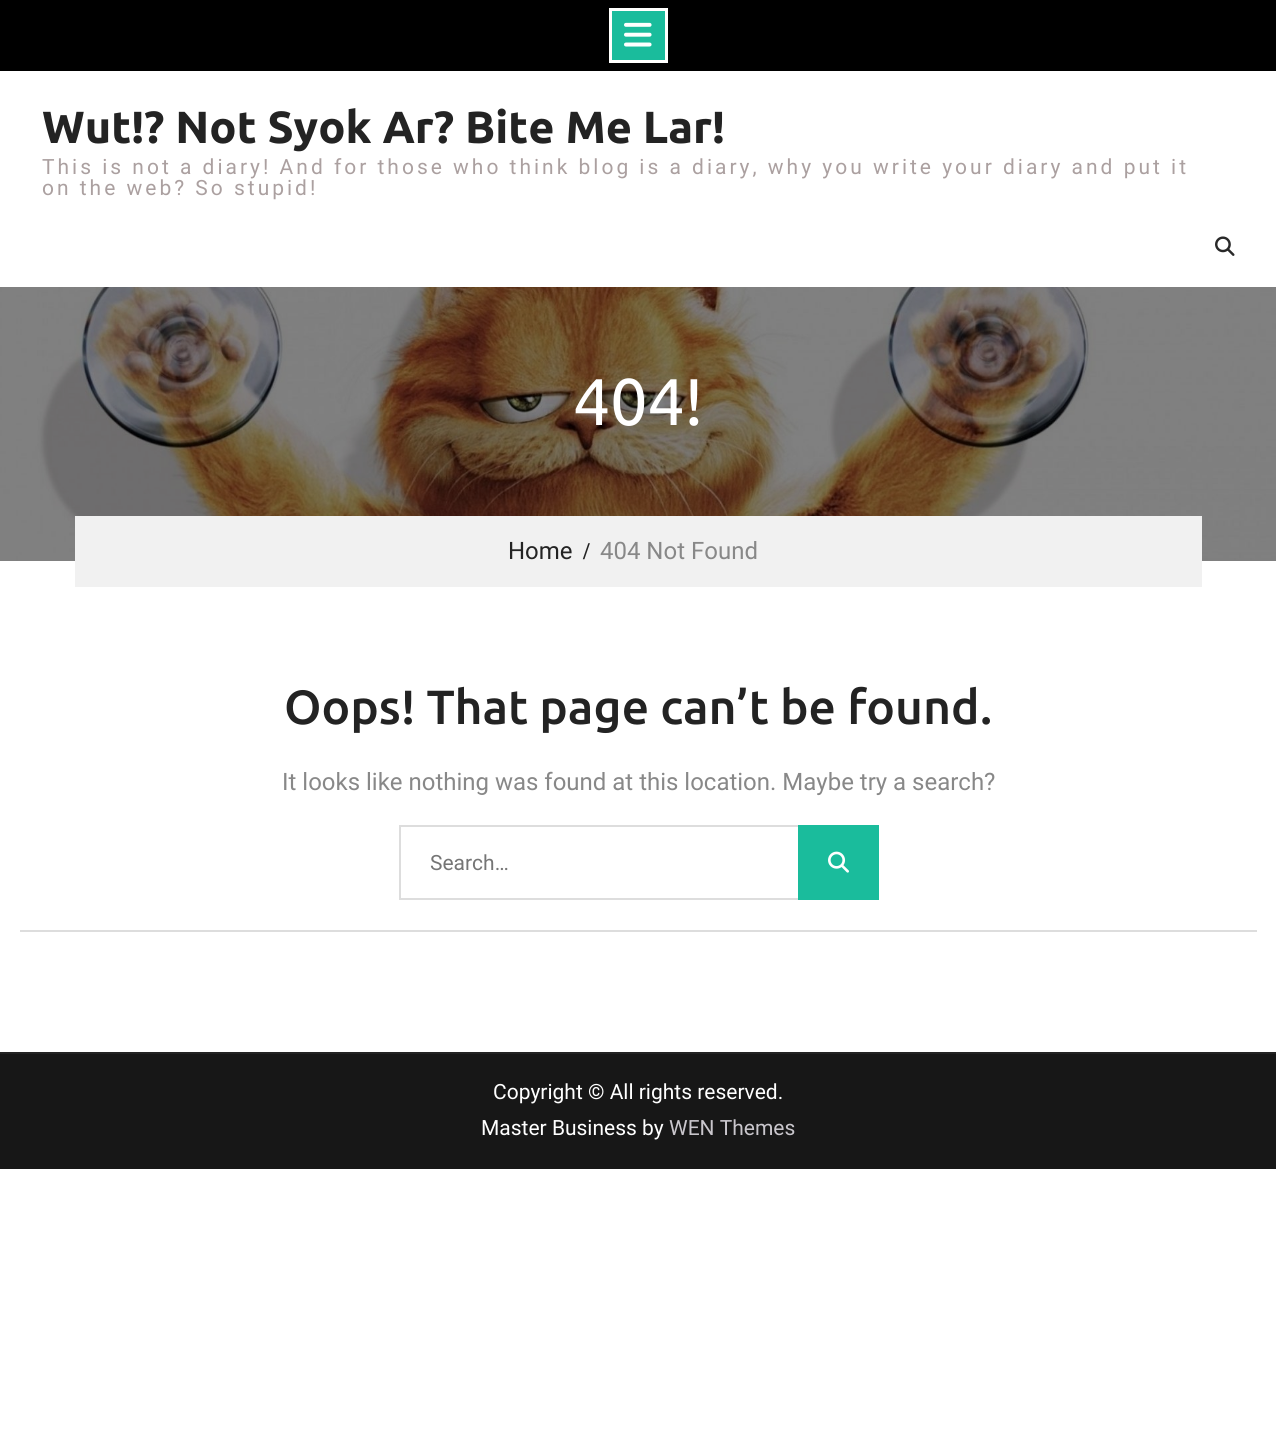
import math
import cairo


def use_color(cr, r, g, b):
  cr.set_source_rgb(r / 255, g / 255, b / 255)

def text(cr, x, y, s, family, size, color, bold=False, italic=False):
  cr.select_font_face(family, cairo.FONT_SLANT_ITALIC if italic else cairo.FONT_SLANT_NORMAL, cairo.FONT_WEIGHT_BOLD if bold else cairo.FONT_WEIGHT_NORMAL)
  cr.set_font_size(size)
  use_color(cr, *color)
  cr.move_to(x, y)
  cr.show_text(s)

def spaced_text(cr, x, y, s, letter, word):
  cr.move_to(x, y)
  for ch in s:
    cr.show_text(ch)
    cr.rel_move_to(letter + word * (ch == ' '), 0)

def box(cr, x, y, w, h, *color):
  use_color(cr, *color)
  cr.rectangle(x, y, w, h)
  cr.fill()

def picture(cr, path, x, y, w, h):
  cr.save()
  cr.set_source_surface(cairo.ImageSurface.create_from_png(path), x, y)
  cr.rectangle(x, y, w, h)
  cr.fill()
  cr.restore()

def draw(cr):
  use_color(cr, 255, 255, 255)
  cr.paint()
  box(cr, 0, 0, 1276, 71, 0, 0, 0)
  use_color(cr, 26, 188, 156)
  cr.rectangle(610.5, 9.5, 56, 52)
  cr.fill_preserve()
  use_color(cr, 255, 255, 254)
  cr.set_line_width(3)
  cr.stroke()
  picture(cr, "img_01.png", 624, 22, 28, 25)
  picture(cr, "img_02.png", 1215, 236, 20, 20)
  picture(cr, "img_03.png", 0, 287, 1276, 274)
  box(cr, 75, 516, 1127, 71, 241, 241, 241)
  box(cr, 20, 930, 1237, 2, 221, 221, 221)
  cr.rectangle(400, 826, 478, 73)
  cr.set_line_width(2)
  cr.stroke()
  box(cr, 798, 825, 81, 75, 26, 188, 156)
  picture(cr, "img_04.png", 828, 851, 21, 22)
  box(cr, 0, 1054, 1276, 115, 23, 23, 23)
  box(cr, 0, 1052, 1276, 2, 35, 35, 35)
  text(cr, 42, 143, "Wut!? Not Syok Ar? Bite Me Lar!", "Ubuntu", 45, (35, 35, 35), bold=True)
  cr.select_font_face("Roboto")
  cr.set_font_size(21)
  use_color(cr, 171, 160, 160)
  spaced_text(cr, 42, 174, "This is not a diary! And for those who think blog is a diary, why you write your diary and put it", 3, 0)
  spaced_text(cr, 42, 195, "on the web? So stupid!", 3, 0)
  text(cr, 573, 425, "404!", "Ubuntu", 66, (255, 255, 255))
  text(cr, 508, 559, "Home", "Roboto", 24, (35, 35, 35))
  text(cr, 583, 559, "/", "Liberation Serif", 24, (35, 35, 35), bold=True)
  text(cr, 600, 559, "404 Not Found", "Roboto", 24, (136, 136, 136))
  text(cr, 284, 724, "Oops! That page can’t be found.", "Ubuntu Medium", 48, (35, 35, 35))
  text(cr, 282, 790, "It looks like nothing was found at this location. Maybe try a search?", "Roboto", 24, (136, 136, 136))
  text(cr, 430, 870, "Search…", "Roboto", 21, (117, 117, 117))
  text(cr, 493, 1099, "Copyright © All rights reserved.", "Roboto", 21, (255, 255, 255))
  text(cr, 481, 1135, "Master Business by", "Roboto", 21, (255, 255, 255))
  text(cr, 669, 1135, "WEN Themes", "Roboto", 21, (201, 198, 204))


surface = cairo.ImageSurface(cairo.FORMAT_RGB24, 1276, 1452)
cr = cairo.Context(surface)
options = cairo.FontOptions()
options.set_hint_metrics(cairo.HINT_METRICS_OFF)
options.set_hint_style(cairo.HINT_STYLE_NONE)
cr.set_font_options(options)
cr.set_miter_limit(4)
draw(cr)
surface.write_to_png("out.png")
